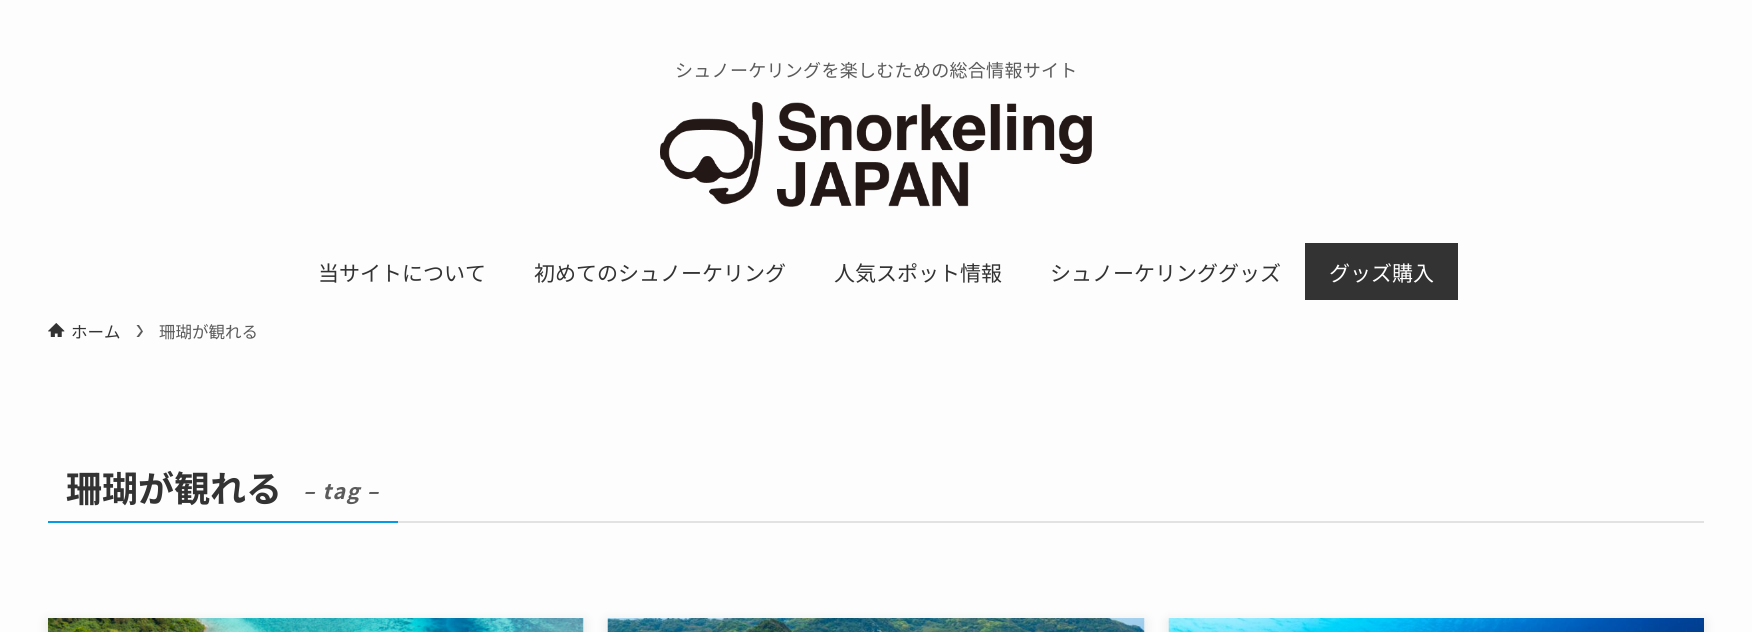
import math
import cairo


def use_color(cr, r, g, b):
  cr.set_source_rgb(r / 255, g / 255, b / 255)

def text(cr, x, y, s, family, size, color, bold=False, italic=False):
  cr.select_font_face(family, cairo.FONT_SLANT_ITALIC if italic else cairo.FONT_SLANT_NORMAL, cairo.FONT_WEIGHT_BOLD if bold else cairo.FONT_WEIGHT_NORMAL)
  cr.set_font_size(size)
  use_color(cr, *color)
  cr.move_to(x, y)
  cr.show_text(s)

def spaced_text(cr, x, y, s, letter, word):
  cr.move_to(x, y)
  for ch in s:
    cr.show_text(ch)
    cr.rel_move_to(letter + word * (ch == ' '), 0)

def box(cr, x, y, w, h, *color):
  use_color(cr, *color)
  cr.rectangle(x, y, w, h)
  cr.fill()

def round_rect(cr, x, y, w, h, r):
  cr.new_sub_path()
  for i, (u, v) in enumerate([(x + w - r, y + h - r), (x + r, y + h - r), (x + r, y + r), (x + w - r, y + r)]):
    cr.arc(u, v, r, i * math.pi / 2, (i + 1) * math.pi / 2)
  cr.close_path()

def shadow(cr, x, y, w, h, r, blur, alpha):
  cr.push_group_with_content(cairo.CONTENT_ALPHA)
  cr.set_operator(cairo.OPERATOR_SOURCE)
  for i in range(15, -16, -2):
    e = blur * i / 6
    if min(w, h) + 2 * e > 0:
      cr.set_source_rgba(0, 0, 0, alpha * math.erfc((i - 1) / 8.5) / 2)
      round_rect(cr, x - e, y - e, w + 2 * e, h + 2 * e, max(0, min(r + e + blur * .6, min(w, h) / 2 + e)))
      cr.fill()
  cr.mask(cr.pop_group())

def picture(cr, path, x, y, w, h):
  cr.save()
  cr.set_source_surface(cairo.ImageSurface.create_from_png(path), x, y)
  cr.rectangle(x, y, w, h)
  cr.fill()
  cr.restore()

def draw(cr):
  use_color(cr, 253, 253, 253)
  cr.paint()
  picture(cr, "img_01.png", 660, 102, 432, 105)
  box(cr, 1305, 243, 153, 57, 51, 51, 51)
  picture(cr, "img_02.png", 48, 323, 17, 14)
  use_color(cr, 91, 91, 91)
  cr.new_path()
  cr.move_to(139, 325)
  cr.line_to(136.5, 325)
  cr.line_to(141, 331)
  cr.line_to(136.5, 337)
  cr.line_to(139, 337)
  cr.line_to(143, 331.5)
  cr.close_path()
  cr.fill()
  box(cr, 398, 521, 1306, 2, 226, 226, 226)
  box(cr, 48, 521, 350, 2, 3, 155, 229)
  use_color(cr, 0, 0, 0)
  shadow(cr, 48, 621, 536, 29, 0, 6, 0.1)
  picture(cr, "img_03.png", 48, 618, 536, 14)
  shadow(cr, 608, 621, 537, 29, 0, 6, 0.1)
  picture(cr, "img_04.png", 607, 618, 538, 14)
  shadow(cr, 1169, 621, 535, 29, 0, 6, 0.1)
  picture(cr, "img_05.png", 1168, 618, 536, 14)
  cr.select_font_face("Noto Sans JP")
  cr.set_font_size(18)
  use_color(cr, 91, 91, 91)
  spaced_text(cr, 675, 77, "シュノーケリングを楽しむための総合情報サイト", 0.3, 0)
  text(cr, 318, 281, "当サイトについて", "Noto Sans JP", 21, (51, 51, 51))
  text(cr, 534, 281, "初めてのシュノーケリング", "Noto Sans JP", 21, (51, 51, 51))
  text(cr, 834, 281, "人気スポット情報", "Noto Sans JP", 21, (51, 51, 51))
  text(cr, 1050, 281, "シュノーケリンググッズ", "Noto Sans JP", 21, (51, 51, 51))
  text(cr, 1329, 281, "グッズ購入", "Noto Sans JP", 21, (255, 255, 255))
  text(cr, 71, 338, "ホーム", "Noto Sans JP", 16.5, (51, 51, 51))
  text(cr, 159, 338, "珊瑚が観れる", "Noto Sans JP", 16.5, (91, 91, 91))
  text(cr, 66, 502, "珊瑚が観れる", "Noto Sans JP", 36, (51, 51, 51), bold=True)
  cr.select_font_face("Noto Sans JP", cairo.FONT_SLANT_ITALIC, cairo.FONT_WEIGHT_BOLD)
  cr.set_font_size(21)
  use_color(cr, 91, 91, 91)
  spaced_text(cr, 303, 499, "– tag –", 1.5, 0)


surface = cairo.ImageSurface(cairo.FORMAT_RGB24, 1752, 632)
cr = cairo.Context(surface)
options = cairo.FontOptions()
options.set_hint_metrics(cairo.HINT_METRICS_OFF)
options.set_hint_style(cairo.HINT_STYLE_NONE)
cr.set_font_options(options)
cr.set_miter_limit(4)
draw(cr)
surface.write_to_png("out.png")
